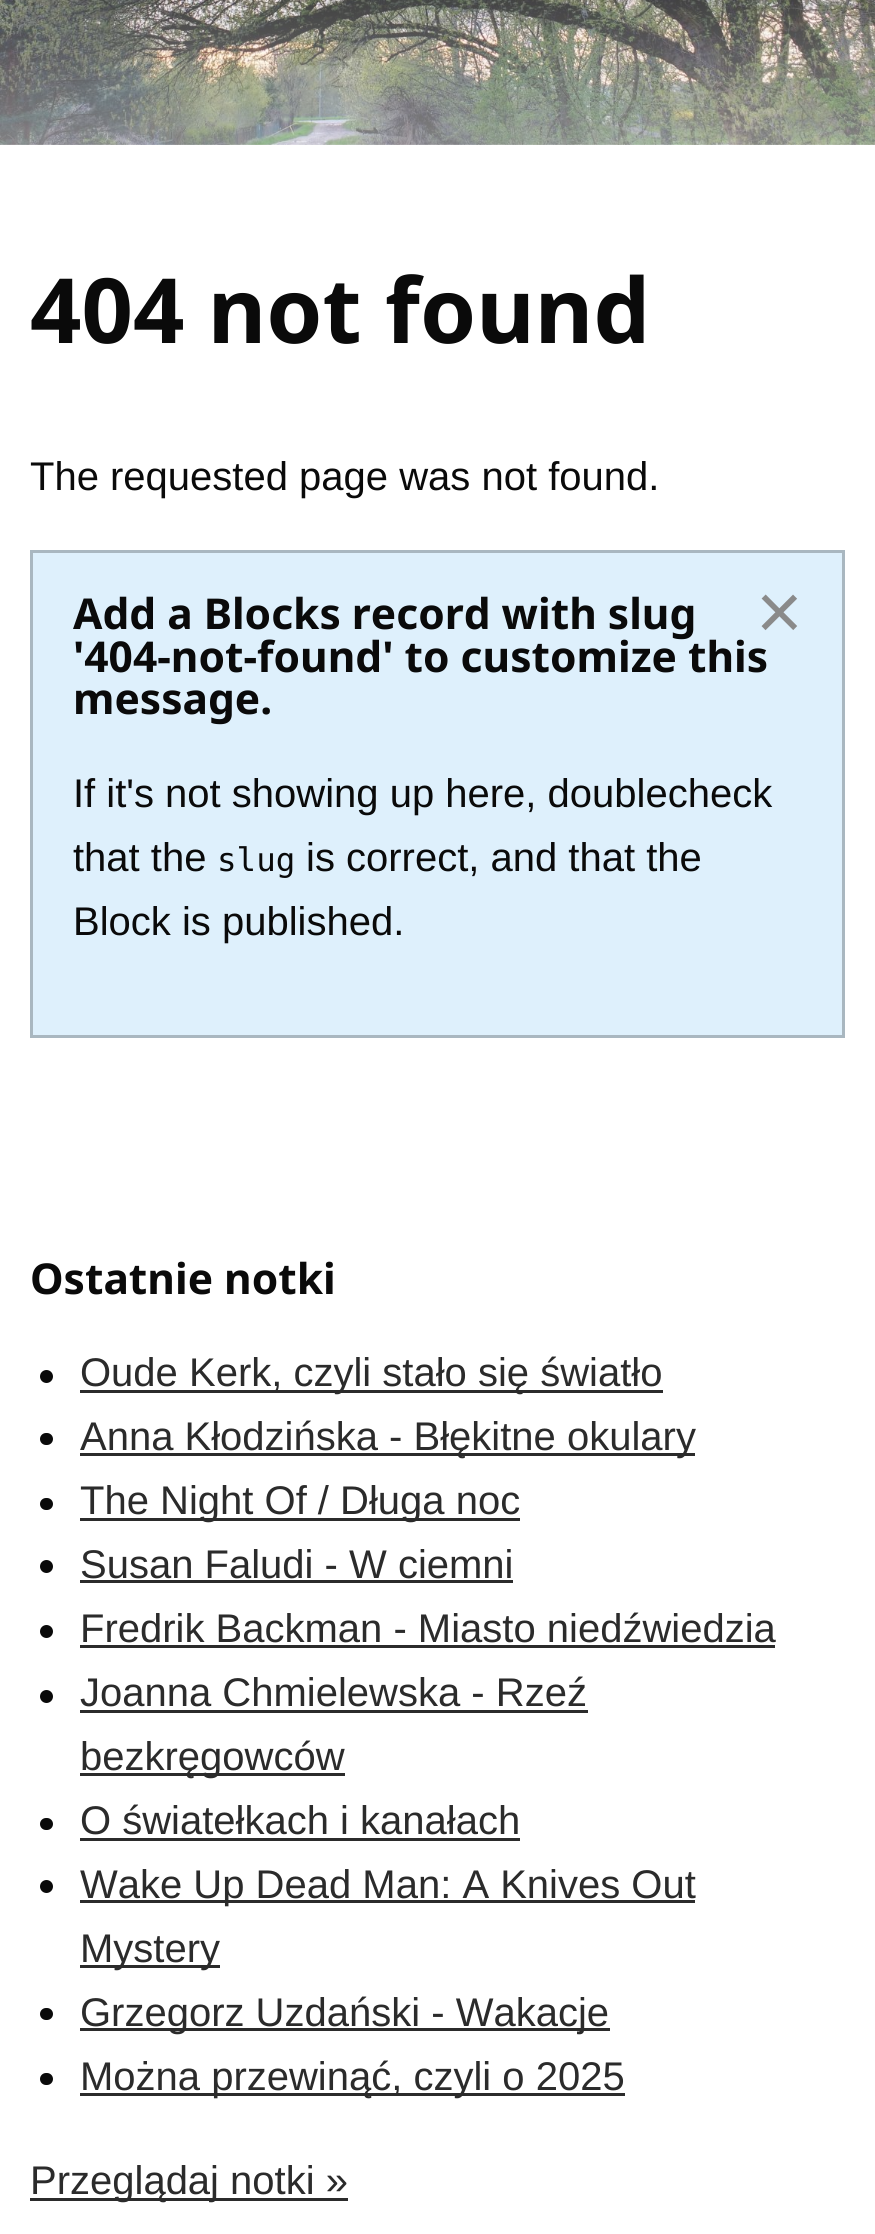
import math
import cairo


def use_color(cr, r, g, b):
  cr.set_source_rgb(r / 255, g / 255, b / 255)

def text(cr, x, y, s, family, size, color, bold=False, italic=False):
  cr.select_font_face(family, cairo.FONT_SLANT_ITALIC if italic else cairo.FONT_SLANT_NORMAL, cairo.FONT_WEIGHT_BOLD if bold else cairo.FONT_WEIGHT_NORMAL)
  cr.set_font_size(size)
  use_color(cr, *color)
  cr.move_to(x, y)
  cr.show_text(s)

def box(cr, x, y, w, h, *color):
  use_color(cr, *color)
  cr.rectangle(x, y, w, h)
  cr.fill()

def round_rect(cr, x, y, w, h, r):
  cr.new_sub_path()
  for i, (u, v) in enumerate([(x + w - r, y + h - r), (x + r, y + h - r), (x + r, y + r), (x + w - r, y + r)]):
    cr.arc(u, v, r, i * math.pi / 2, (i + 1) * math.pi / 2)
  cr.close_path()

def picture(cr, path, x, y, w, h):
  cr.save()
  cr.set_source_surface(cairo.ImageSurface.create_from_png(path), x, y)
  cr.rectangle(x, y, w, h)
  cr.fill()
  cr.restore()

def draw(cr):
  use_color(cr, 255, 255, 255)
  cr.paint()
  picture(cr, "img_01.png", 0, 0, 875, 145)
  use_color(cr, 222, 240, 252)
  cr.rectangle(31.5, 551.5, 812, 485)
  cr.fill_preserve()
  use_color(cr, 169, 183, 192)
  cr.set_line_width(3)
  cr.stroke()
  use_color(cr, 10, 10, 10)
  cr.arc(46.5, 1376.5, 6.5, 0, 2 * math.pi)
  cr.fill()
  box(cr, 80, 1390, 583, 3, 43, 43, 43)
  use_color(cr, 10, 10, 10)
  round_rect(cr, 40, 1433, 13, 12, 6)
  cr.fill()
  box(cr, 80, 1453, 615, 3, 43, 43, 43)
  use_color(cr, 10, 10, 10)
  round_rect(cr, 40, 1498, 13, 12, 6)
  cr.fill()
  box(cr, 80, 1518, 440, 3, 43, 43, 43)
  use_color(cr, 10, 10, 10)
  cr.arc(46.5, 1566.5, 6.5, 0, 2 * math.pi)
  cr.fill()
  box(cr, 80, 1580, 433, 3, 43, 43, 43)
  use_color(cr, 10, 10, 10)
  cr.arc(46.5, 1631.5, 6.5, 0, 2 * math.pi)
  cr.fill()
  box(cr, 80, 1645, 695, 3, 43, 43, 43)
  use_color(cr, 10, 10, 10)
  cr.arc(46.5, 1696.5, 6.5, 0, 2 * math.pi)
  cr.fill()
  box(cr, 80, 1710, 508, 3, 43, 43, 43)
  box(cr, 80, 1773, 265, 3, 43, 43, 43)
  use_color(cr, 10, 10, 10)
  round_rect(cr, 40, 1818, 13, 12, 6)
  cr.fill()
  box(cr, 80, 1838, 440, 3, 43, 43, 43)
  use_color(cr, 10, 10, 10)
  cr.arc(46.5, 1886.5, 6.5, 0, 2 * math.pi)
  cr.fill()
  box(cr, 80, 1900, 615, 3, 43, 43, 43)
  box(cr, 80, 1965, 140, 3, 43, 43, 43)
  use_color(cr, 10, 10, 10)
  round_rect(cr, 40, 2008, 13, 12, 6)
  cr.fill()
  box(cr, 80, 2028, 530, 3, 43, 43, 43)
  use_color(cr, 10, 10, 10)
  round_rect(cr, 40, 2073, 13, 12, 6)
  cr.fill()
  box(cr, 80, 2093, 545, 3, 43, 43, 43)
  box(cr, 30, 2198, 318, 3, 43, 43, 43)
  text(cr, 30, 343, "404 not found", "Noto Sans", 90, (10, 10, 10), bold=True)
  text(cr, 30, 490, "The requested page was not found.", "Liberation Sans", 40, (10, 10, 10))
  text(cr, 73, 629, "Add a Blocks record with slug", "Noto Sans", 42.5, (10, 10, 10), bold=True)
  text(cr, 73, 672, "'404-not-found' to customize this", "Noto Sans", 42.5, (10, 10, 10), bold=True)
  text(cr, 73, 714, "message.", "Noto Sans", 42.5, (10, 10, 10), bold=True)
  text(cr, 756, 639, "×", "Liberation Sans", 80, (138, 138, 138))
  text(cr, 73, 807, "If it's not showing up here, doublecheck", "Liberation Sans", 40, (10, 10, 10))
  text(cr, 73, 871, "that the", "Liberation Sans", 40, (10, 10, 10))
  text(cr, 217, 871, "slug", "DejaVu Sans Mono", 32.5, (10, 10, 10))
  text(cr, 306, 871, "is correct, and that the", "Liberation Sans", 40, (10, 10, 10))
  text(cr, 73, 935, "Block is published.", "Liberation Sans", 40, (10, 10, 10))
  text(cr, 30, 1294, "Ostatnie notki", "Noto Sans", 42.5, (10, 10, 10), bold=True)
  text(cr, 80, 1386, "Oude Kerk, czyli stało się światło", "Liberation Sans", 40, (43, 43, 43))
  text(cr, 80, 1450, "Anna Kłodzińska - Błękitne okulary", "Liberation Sans", 40, (43, 43, 43))
  text(cr, 80, 1514, "The Night Of / Długa noc", "Liberation Sans", 40, (43, 43, 43))
  text(cr, 80, 1578, "Susan Faludi - W ciemni", "Liberation Sans", 40, (43, 43, 43))
  text(cr, 80, 1642, "Fredrik Backman - Miasto niedźwiedzia", "Liberation Sans", 40, (43, 43, 43))
  text(cr, 80, 1706, "Joanna Chmielewska - Rzeź", "Liberation Sans", 40, (43, 43, 43))
  text(cr, 80, 1770, "bezkręgowców", "Liberation Sans", 40, (43, 43, 43))
  text(cr, 80, 1834, "O światełkach i kanałach", "Liberation Sans", 40, (43, 43, 43))
  text(cr, 80, 1898, "Wake Up Dead Man: A Knives Out", "Liberation Sans", 40, (43, 43, 43))
  text(cr, 80, 1962, "Mystery", "Liberation Sans", 40, (43, 43, 43))
  text(cr, 80, 2026, "Grzegorz Uzdański - Wakacje", "Liberation Sans", 40, (43, 43, 43))
  text(cr, 80, 2090, "Można przewinąć, czyli o 2025", "Liberation Sans", 40, (43, 43, 43))
  text(cr, 30, 2194, "Przeglądaj notki »", "Liberation Sans", 40, (43, 43, 43))


surface = cairo.ImageSurface(cairo.FORMAT_RGB24, 875, 2234)
cr = cairo.Context(surface)
options = cairo.FontOptions()
options.set_hint_metrics(cairo.HINT_METRICS_OFF)
options.set_hint_style(cairo.HINT_STYLE_NONE)
cr.set_font_options(options)
cr.set_miter_limit(4)
draw(cr)
surface.write_to_png("out.png")
